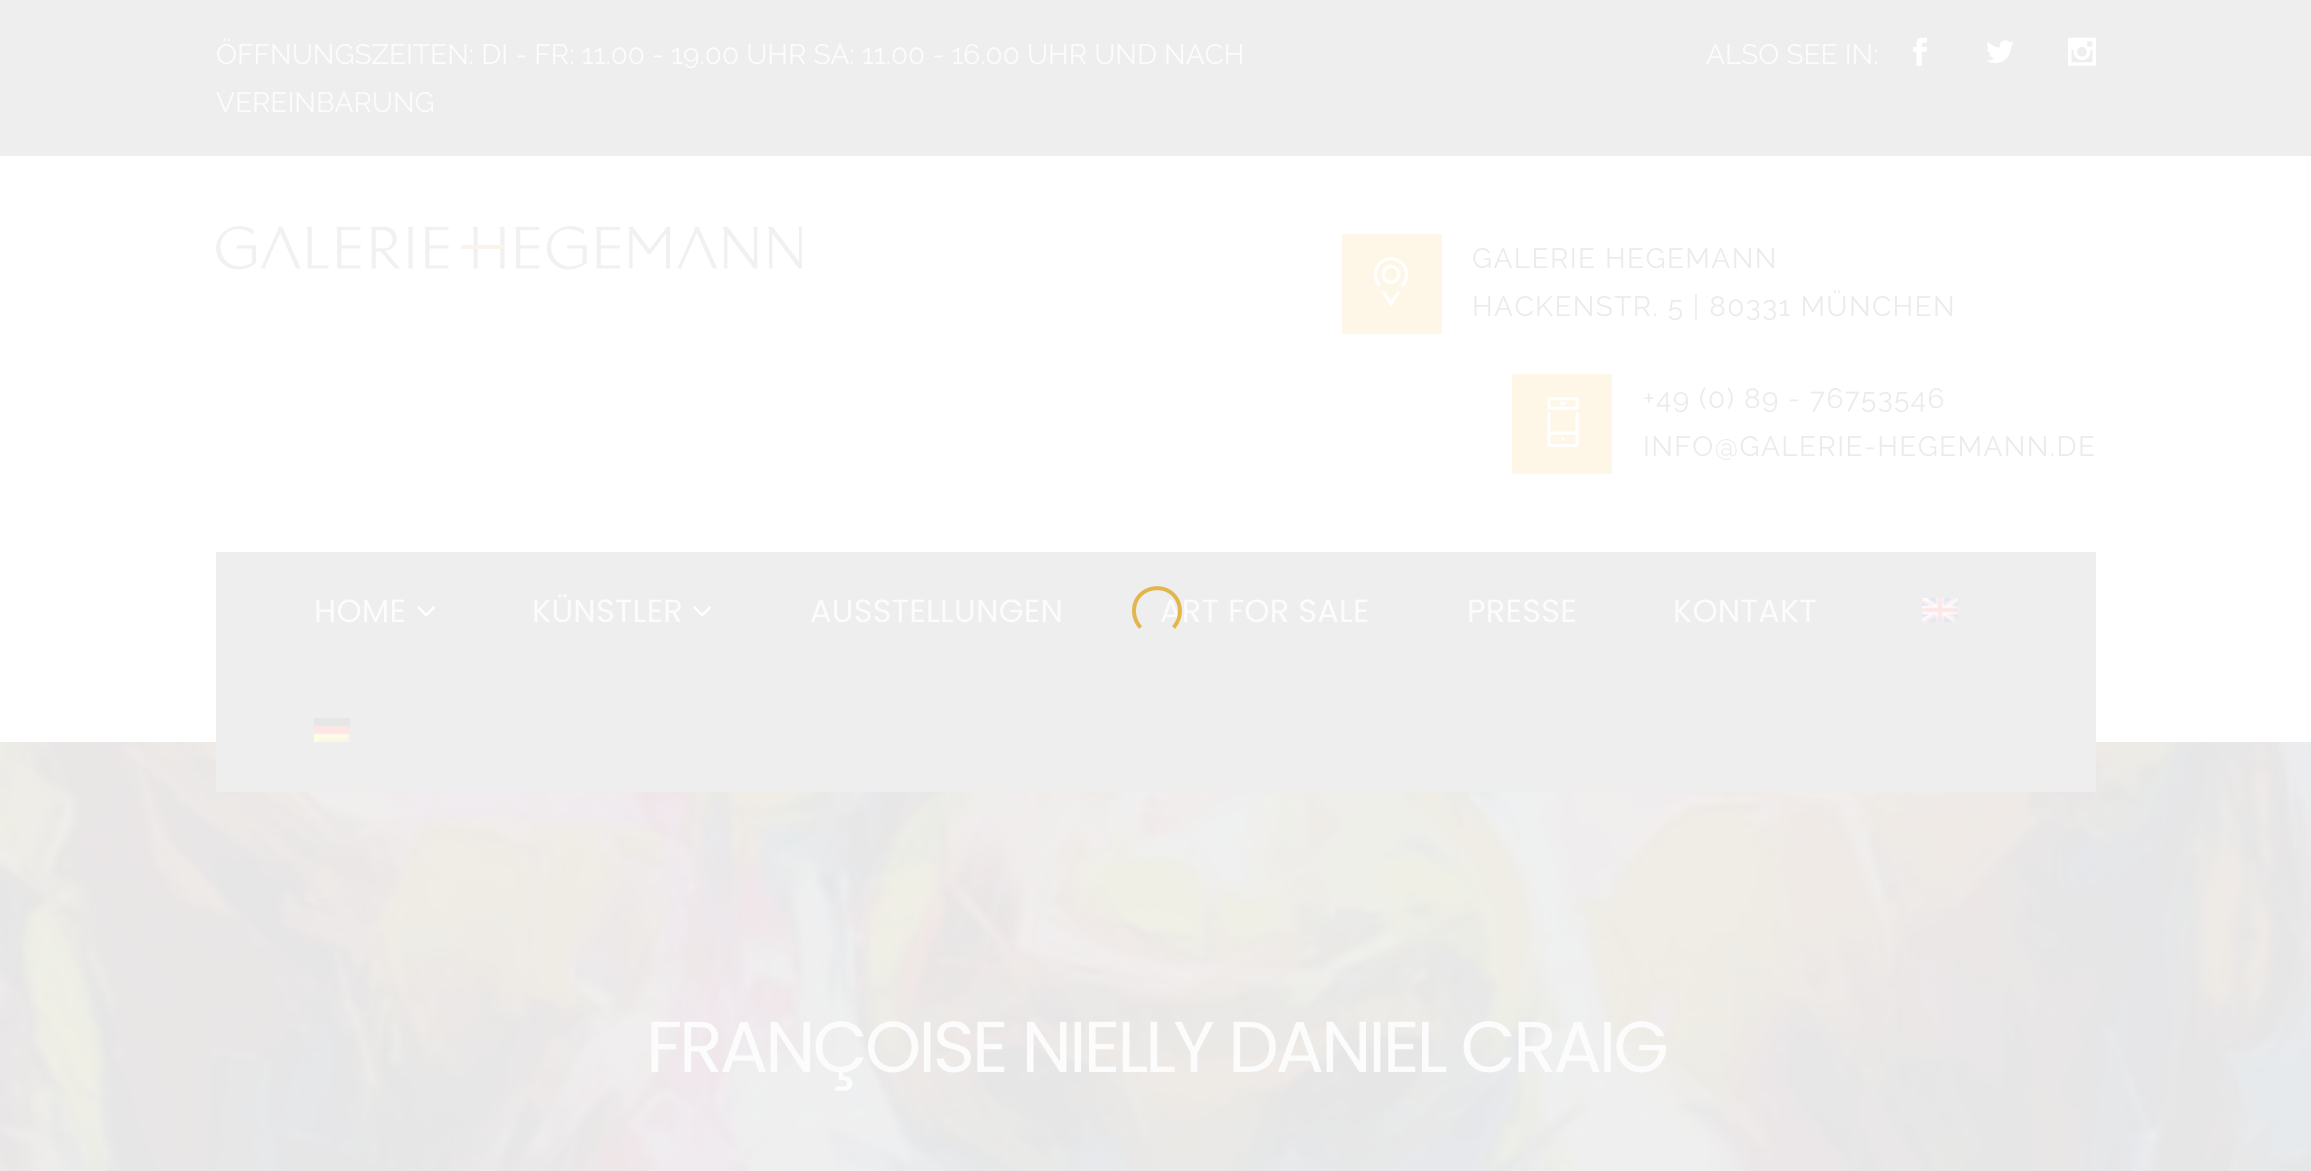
import math
import cairo


def use_color(cr, r, g, b):
  cr.set_source_rgb(r / 255, g / 255, b / 255)

def text(cr, x, y, s, family, size, color, bold=False, italic=False):
  cr.select_font_face(family, cairo.FONT_SLANT_ITALIC if italic else cairo.FONT_SLANT_NORMAL, cairo.FONT_WEIGHT_BOLD if bold else cairo.FONT_WEIGHT_NORMAL)
  cr.set_font_size(size)
  use_color(cr, *color)
  cr.move_to(x, y)
  cr.show_text(s)

def spaced_text(cr, x, y, s, letter, word):
  cr.move_to(x, y)
  for ch in s:
    cr.show_text(ch)
    cr.rel_move_to(letter + word * (ch == ' '), 0)

def box(cr, x, y, w, h, *color):
  use_color(cr, *color)
  cr.rectangle(x, y, w, h)
  cr.fill()

def picture(cr, path, x, y, w, h):
  cr.save()
  cr.set_source_surface(cairo.ImageSurface.create_from_png(path), x, y)
  cr.rectangle(x, y, w, h)
  cr.fill()
  cr.restore()

def draw(cr):
  use_color(cr, 255, 255, 255)
  cr.paint()
  box(cr, 0, 0, 2311, 156, 238, 238, 238)
  picture(cr, "img_01.png", 1913, 37, 15, 29)
  picture(cr, "img_02.png", 1986, 40, 28, 24)
  picture(cr, "img_03.png", 2068, 37, 28, 29)
  picture(cr, "img_04.png", 216, 226, 586, 44)
  box(cr, 1342, 234, 100, 100, 254, 247, 231)
  picture(cr, "img_05.png", 1373, 257, 36, 50)
  box(cr, 1512, 374, 100, 100, 254, 247, 231)
  picture(cr, "img_06.png", 1547, 397, 32, 51)
  picture(cr, "img_10.png", 0, 742, 2311, 429)
  box(cr, 216, 552, 1880, 240, 238, 238, 238)
  picture(cr, "img_07.png", 417, 606, 19, 11)
  picture(cr, "img_07.png", 693, 606, 19, 11)
  picture(cr, "img_08.png", 1922, 598, 36, 24)
  picture(cr, "img_09.png", 314, 718, 36, 24)
  text(cr, 216, 64, "ÖFFNUNGSZEITEN: DI - FR: 11.00 - 19.00 UHR SA: 11.00 - 16.00 UHR UND NACH", "Raleway Thin", 28, (252, 252, 252))
  text(cr, 216, 112, "VEREINBARUNG", "Raleway Thin", 28, (252, 252, 252))
  text(cr, 1706, 64, "ALSO SEE IN:", "Raleway Thin", 28, (252, 252, 252))
  use_color(cr, 235, 235, 235)
  spaced_text(cr, 1472, 268, "GALERIE HEGEMANN", 1.4, 0)
  spaced_text(cr, 1472, 316, "HACKENSTR. 5 | 80331 MÜNCHEN", 1.4, 0)
  spaced_text(cr, 1643, 408, "+49 (0) 89 - 76753546", 1.4, 0)
  spaced_text(cr, 1643, 456, "INFO@GALERIE-HEGEMANN.DE", 1.4, 0)
  cr.select_font_face("Poppins")
  cr.set_font_size(32)
  use_color(cr, 252, 252, 252)
  spaced_text(cr, 314, 622, "HOME", 0.25, 0)
  spaced_text(cr, 532, 622, "KÜNSTLER", 0.25, 0)
  spaced_text(cr, 810, 622, "AUSSTELLUNGEN", 0.25, 0)
  spaced_text(cr, 1160, 622, "ART FOR SALE", 0.25, 0)
  spaced_text(cr, 1467, 622, "PRESSE", 0.25, 0)
  spaced_text(cr, 1673, 622, "KONTAKT", 0.25, 0)
  cr.new_path()
  cr.move_to(1140.5, 627.5)
  cr.curve_to(1136.5, 623, 1134, 617, 1134, 611)
  cr.curve_to(1134, 583.5, 1174, 579.5, 1179.5, 606.5)
  cr.curve_to(1181, 614, 1178.5, 622, 1173.5, 627.5)
  cr.set_source_rgba(0.886, 0.694, 0.235, 0.9)
  cr.set_line_width(4)
  cr.stroke()
  cr.set_font_size(72)
  use_color(cr, 252, 252, 252)
  spaced_text(cr, 646, 1072, "FRANÇOISE NIELLY DANIEL CRAIG", -3.2, 0)


surface = cairo.ImageSurface(cairo.FORMAT_RGB24, 2311, 1171)
cr = cairo.Context(surface)
options = cairo.FontOptions()
options.set_hint_metrics(cairo.HINT_METRICS_OFF)
options.set_hint_style(cairo.HINT_STYLE_NONE)
cr.set_font_options(options)
cr.set_miter_limit(4)
draw(cr)
surface.write_to_png("out.png")
